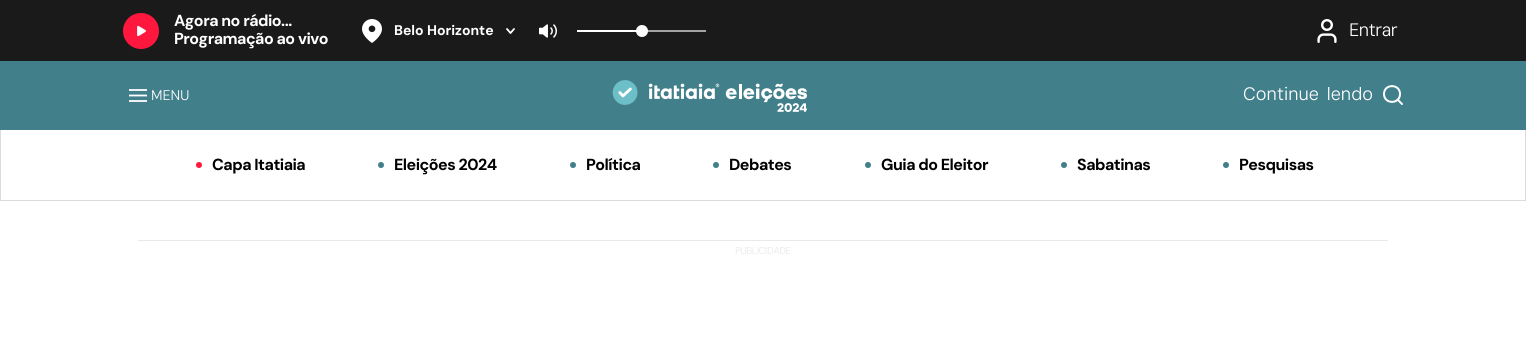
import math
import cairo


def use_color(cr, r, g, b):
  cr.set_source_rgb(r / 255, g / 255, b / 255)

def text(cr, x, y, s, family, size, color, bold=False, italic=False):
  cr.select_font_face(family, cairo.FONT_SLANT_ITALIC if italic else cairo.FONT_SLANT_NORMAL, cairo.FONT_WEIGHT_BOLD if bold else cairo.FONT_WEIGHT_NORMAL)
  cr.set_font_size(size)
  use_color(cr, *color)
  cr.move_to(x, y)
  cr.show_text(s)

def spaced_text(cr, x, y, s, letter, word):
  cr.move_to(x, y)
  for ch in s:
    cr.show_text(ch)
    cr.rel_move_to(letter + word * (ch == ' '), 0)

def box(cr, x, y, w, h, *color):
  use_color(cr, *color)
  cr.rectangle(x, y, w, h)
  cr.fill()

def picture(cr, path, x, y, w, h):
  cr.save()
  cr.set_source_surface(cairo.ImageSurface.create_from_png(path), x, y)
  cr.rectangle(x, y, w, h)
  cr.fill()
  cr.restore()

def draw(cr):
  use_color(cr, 255, 255, 255)
  cr.paint()
  box(cr, 0, 0, 1526, 61, 26, 26, 26)
  use_color(cr, 255, 23, 62)
  cr.arc(141, 31, 18, 0, 2 * math.pi)
  cr.fill()
  picture(cr, "img_01.png", 137, 25, 9, 12)
  picture(cr, "img_02.png", 362, 19, 20, 24)
  cr.new_path()
  cr.move_to(507, 29)
  cr.line_to(510.5, 33)
  cr.line_to(514, 29)
  use_color(cr, 255, 255, 255)
  cr.set_line_width(1.8)
  cr.set_line_cap(cairo.LINE_CAP_ROUND)
  cr.set_line_join(cairo.LINE_JOIN_ROUND)
  cr.stroke()
  picture(cr, "img_03.png", 539, 24, 18, 14)
  box(cr, 647, 30, 59, 2, 163, 163, 163)
  box(cr, 577, 30, 65, 2, 255, 255, 255)
  cr.arc(642, 31, 6, 0, 2 * math.pi)
  cr.fill()
  picture(cr, "img_04.png", 1317, 19, 20, 24)
  cr.rectangle(0.5, 129.5, 1525, 71)
  use_color(cr, 220, 220, 220)
  cr.set_line_width(1)
  cr.set_line_cap(cairo.LINE_CAP_BUTT)
  cr.set_line_join(cairo.LINE_JOIN_MITER)
  cr.stroke()
  box(cr, 0, 61, 1526, 69, 65, 127, 138)
  cr.new_path()
  cr.move_to(129, 90)
  cr.line_to(147, 90)
  cr.move_to(129, 95.5)
  cr.line_to(147, 95.5)
  cr.move_to(129, 101)
  cr.line_to(147, 101)
  use_color(cr, 255, 255, 255)
  cr.set_line_width(1.8)
  cr.stroke()
  picture(cr, "img_05.png", 612, 80, 195, 32)
  cr.new_path()
  cr.move_to(1402, 104)
  cr.line_to(1397.5, 99.5)
  cr.move_to(1400, 94)
  cr.curve_to(1400, 104.5, 1384, 104.5, 1384, 94)
  cr.curve_to(1384, 83.5, 1400, 83.5, 1400, 94)
  cr.close_path()
  cr.set_line_width(2)
  cr.set_line_cap(cairo.LINE_CAP_ROUND)
  cr.set_line_join(cairo.LINE_JOIN_ROUND)
  cr.stroke()
  use_color(cr, 255, 23, 62)
  cr.arc(199, 165, 3, 0, 2 * math.pi)
  cr.fill()
  use_color(cr, 65, 127, 138)
  cr.arc(381, 165, 3, 0, 2 * math.pi)
  cr.fill()
  cr.arc(573, 165, 3, 0, 2 * math.pi)
  cr.fill()
  cr.arc(716, 165, 3, 0, 2 * math.pi)
  cr.fill()
  cr.arc(868, 165, 3, 0, 2 * math.pi)
  cr.fill()
  cr.arc(1064, 165, 3, 0, 2 * math.pi)
  cr.fill()
  cr.arc(1226, 165, 3, 0, 2 * math.pi)
  cr.fill()
  box(cr, 138, 240, 1250, 1, 233, 233, 233)
  cr.select_font_face("DM Sans", cairo.FONT_SLANT_NORMAL, cairo.FONT_WEIGHT_BOLD)
  cr.set_font_size(16)
  use_color(cr, 255, 255, 255)
  spaced_text(cr, 174, 26, "Agora no rádio...", -0.5, 0)
  spaced_text(cr, 174, 44, "Programação ao vivo", -0.5, 0)
  text(cr, 394, 35, "Belo Horizonte", "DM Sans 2", 14, (255, 255, 255), bold=True)
  cr.select_font_face("DM Sans Light")
  cr.set_font_size(18)
  spaced_text(cr, 1349, 36, "Entrar", -0.5, 0)
  text(cr, 151, 100, "MENU", "DM Sans Light", 14, (255, 255, 255))
  cr.set_font_size(18)
  spaced_text(cr, 1243, 100, "Continue lendo", 0, 3)
  cr.select_font_face("DM Sans", cairo.FONT_SLANT_NORMAL, cairo.FONT_WEIGHT_BOLD)
  cr.set_font_size(16)
  use_color(cr, 0, 0, 0)
  spaced_text(cr, 212, 170, "Capa Itatiaia", -0.5, 0)
  spaced_text(cr, 394, 170, "Eleições 2024", -0.5, 0)
  spaced_text(cr, 586, 170, "Política", -0.5, 0)
  spaced_text(cr, 729, 170, "Debates", -0.5, 0)
  spaced_text(cr, 881, 170, "Guia do Eleitor", -0.5, 0)
  spaced_text(cr, 1077, 170, "Sabatinas", -0.5, 0)
  spaced_text(cr, 1239, 170, "Pesquisas", -0.5, 0)
  cr.select_font_face("DM Sans Light")
  cr.set_font_size(10)
  use_color(cr, 233, 233, 233)
  spaced_text(cr, 735, 254, "PUBLICIDADE", -0.5, 0)


surface = cairo.ImageSurface(cairo.FORMAT_RGB24, 1526, 340)
cr = cairo.Context(surface)
options = cairo.FontOptions()
options.set_hint_metrics(cairo.HINT_METRICS_OFF)
options.set_hint_style(cairo.HINT_STYLE_NONE)
cr.set_font_options(options)
cr.set_miter_limit(4)
draw(cr)
surface.write_to_png("out.png")
